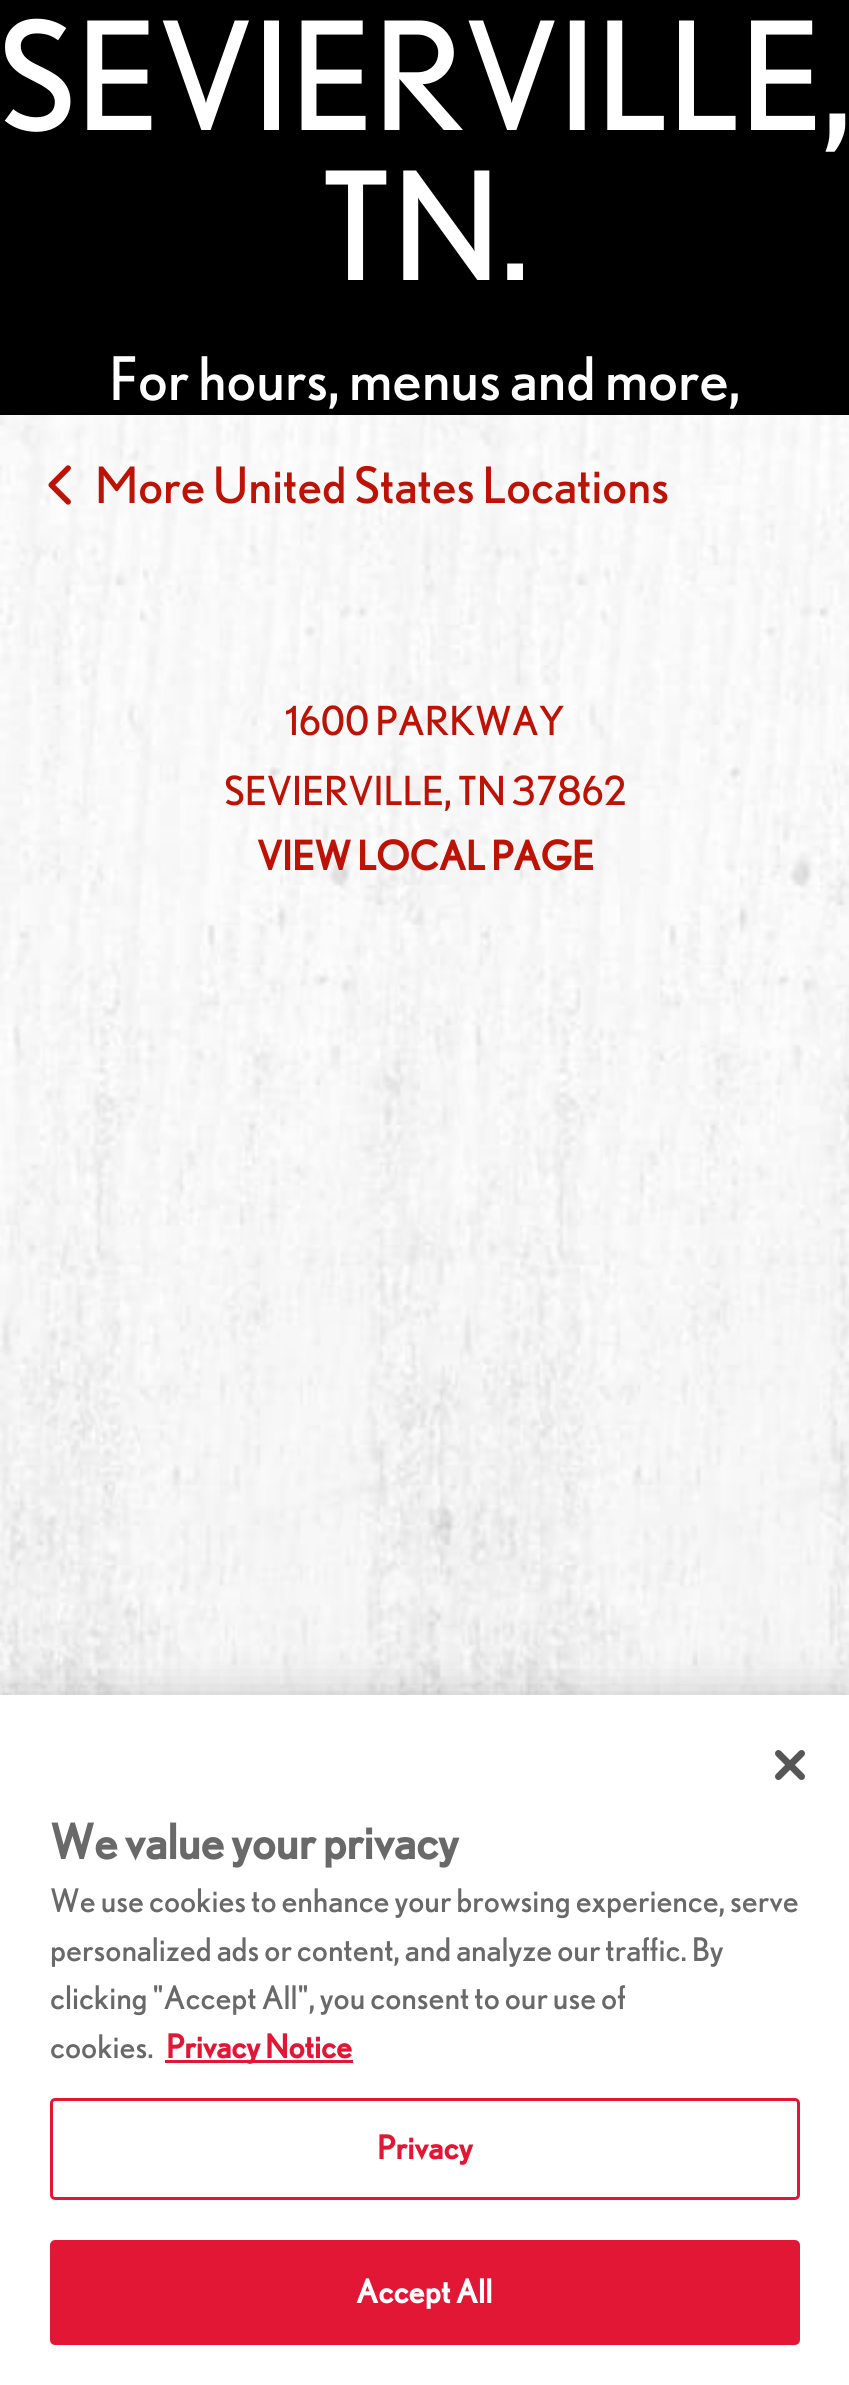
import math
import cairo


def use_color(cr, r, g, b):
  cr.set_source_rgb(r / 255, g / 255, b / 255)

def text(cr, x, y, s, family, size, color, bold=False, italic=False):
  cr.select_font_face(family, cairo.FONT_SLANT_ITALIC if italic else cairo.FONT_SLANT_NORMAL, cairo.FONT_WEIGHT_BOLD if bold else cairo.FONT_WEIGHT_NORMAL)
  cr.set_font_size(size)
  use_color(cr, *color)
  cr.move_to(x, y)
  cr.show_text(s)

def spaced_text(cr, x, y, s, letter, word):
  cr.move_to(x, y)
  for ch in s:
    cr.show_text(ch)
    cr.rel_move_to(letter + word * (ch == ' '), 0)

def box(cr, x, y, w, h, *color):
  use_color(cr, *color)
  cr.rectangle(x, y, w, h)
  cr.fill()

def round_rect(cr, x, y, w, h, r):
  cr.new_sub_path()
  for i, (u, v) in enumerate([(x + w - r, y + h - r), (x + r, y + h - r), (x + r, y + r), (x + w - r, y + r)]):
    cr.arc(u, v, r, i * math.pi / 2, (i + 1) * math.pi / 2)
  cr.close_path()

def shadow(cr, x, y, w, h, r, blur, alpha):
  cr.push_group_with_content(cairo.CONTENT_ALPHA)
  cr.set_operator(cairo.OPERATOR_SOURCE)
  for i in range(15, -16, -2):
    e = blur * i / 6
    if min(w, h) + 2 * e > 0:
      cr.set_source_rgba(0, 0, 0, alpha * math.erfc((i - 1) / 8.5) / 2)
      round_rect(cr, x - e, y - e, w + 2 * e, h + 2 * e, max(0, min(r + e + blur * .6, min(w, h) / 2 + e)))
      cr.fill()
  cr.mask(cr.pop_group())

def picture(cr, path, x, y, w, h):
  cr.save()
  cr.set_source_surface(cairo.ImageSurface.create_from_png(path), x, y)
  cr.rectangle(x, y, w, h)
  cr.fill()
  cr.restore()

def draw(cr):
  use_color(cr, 255, 255, 255)
  cr.paint()
  picture(cr, "img_01.png", 0, 415, 849, 1280)
  box(cr, 0, 0, 849, 415, 0, 0, 0)
  picture(cr, "img_02.png", 48, 465, 23, 40)
  use_color(cr, 0, 0, 0)
  shadow(cr, 0, 1695, 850, 690, 0, 22.5, 0.2)
  box(cr, 0, 1695, 849, 690, 255, 255, 255)
  picture(cr, "img_03.png", 775, 1750, 30, 30)
  box(cr, 165, 2060, 188, 3, 226, 23, 53)
  round_rect(cr, 51.5, 2099.5, 747, 99, 3.5)
  cr.set_line_width(3)
  cr.stroke()
  round_rect(cr, 51.5, 2241.5, 747, 102, 3.5)
  cr.fill_preserve()
  cr.stroke()
  text(cr, -2, 130, "SEVIERVILLE,", "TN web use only", 150, (255, 255, 255))
  text(cr, 320, 280, "TN.", "TN web use only", 150, (255, 255, 255))
  text(cr, 109, 400, "For hours, menus and more,", "TN web use only", 60, (255, 255, 255))
  text(cr, 95, 503, "More United States Locations", "TN web use only", 50, (189, 18, 6))
  text(cr, 285, 735, "1600 PARKWAY", "TN web use only", 40, (189, 18, 6))
  text(cr, 224, 805, "SEVIERVILLE, TN 37862", "TN web use only", 40, (189, 18, 6))
  text(cr, 257, 870, "VIEW LOCAL PAGE", "TN web use only", 40, (189, 18, 6), bold=True)
  text(cr, 50, 1859, "We value your privacy", "TN web use only", 48, (105, 105, 105), bold=True)
  text(cr, 50, 1912, "We use cookies to enhance your browsing experience, serve", "TN web use only", 32.5, (105, 105, 105))
  text(cr, 50, 1961, "personalized ads or content, and analyze our traffic. By", "TN web use only", 32.5, (105, 105, 105))
  text(cr, 50, 2009, "clicking \"Accept All\", you consent to our use of", "TN web use only", 32.5, (105, 105, 105))
  text(cr, 50, 2058, "cookies.", "TN web use only", 32.5, (105, 105, 105))
  text(cr, 166, 2058, "Privacy Notice", "TN web use only", 32.5, (226, 23, 53), bold=True)
  spaced_text(cr, 377, 2159, "Privacy", 0.25, 0)
  use_color(cr, 255, 255, 255)
  spaced_text(cr, 356, 2303, "Accept All", 0.25, 0)


surface = cairo.ImageSurface(cairo.FORMAT_RGB24, 849, 2385)
cr = cairo.Context(surface)
options = cairo.FontOptions()
options.set_hint_metrics(cairo.HINT_METRICS_OFF)
options.set_hint_style(cairo.HINT_STYLE_NONE)
cr.set_font_options(options)
cr.set_miter_limit(4)
draw(cr)
surface.write_to_png("out.png")
